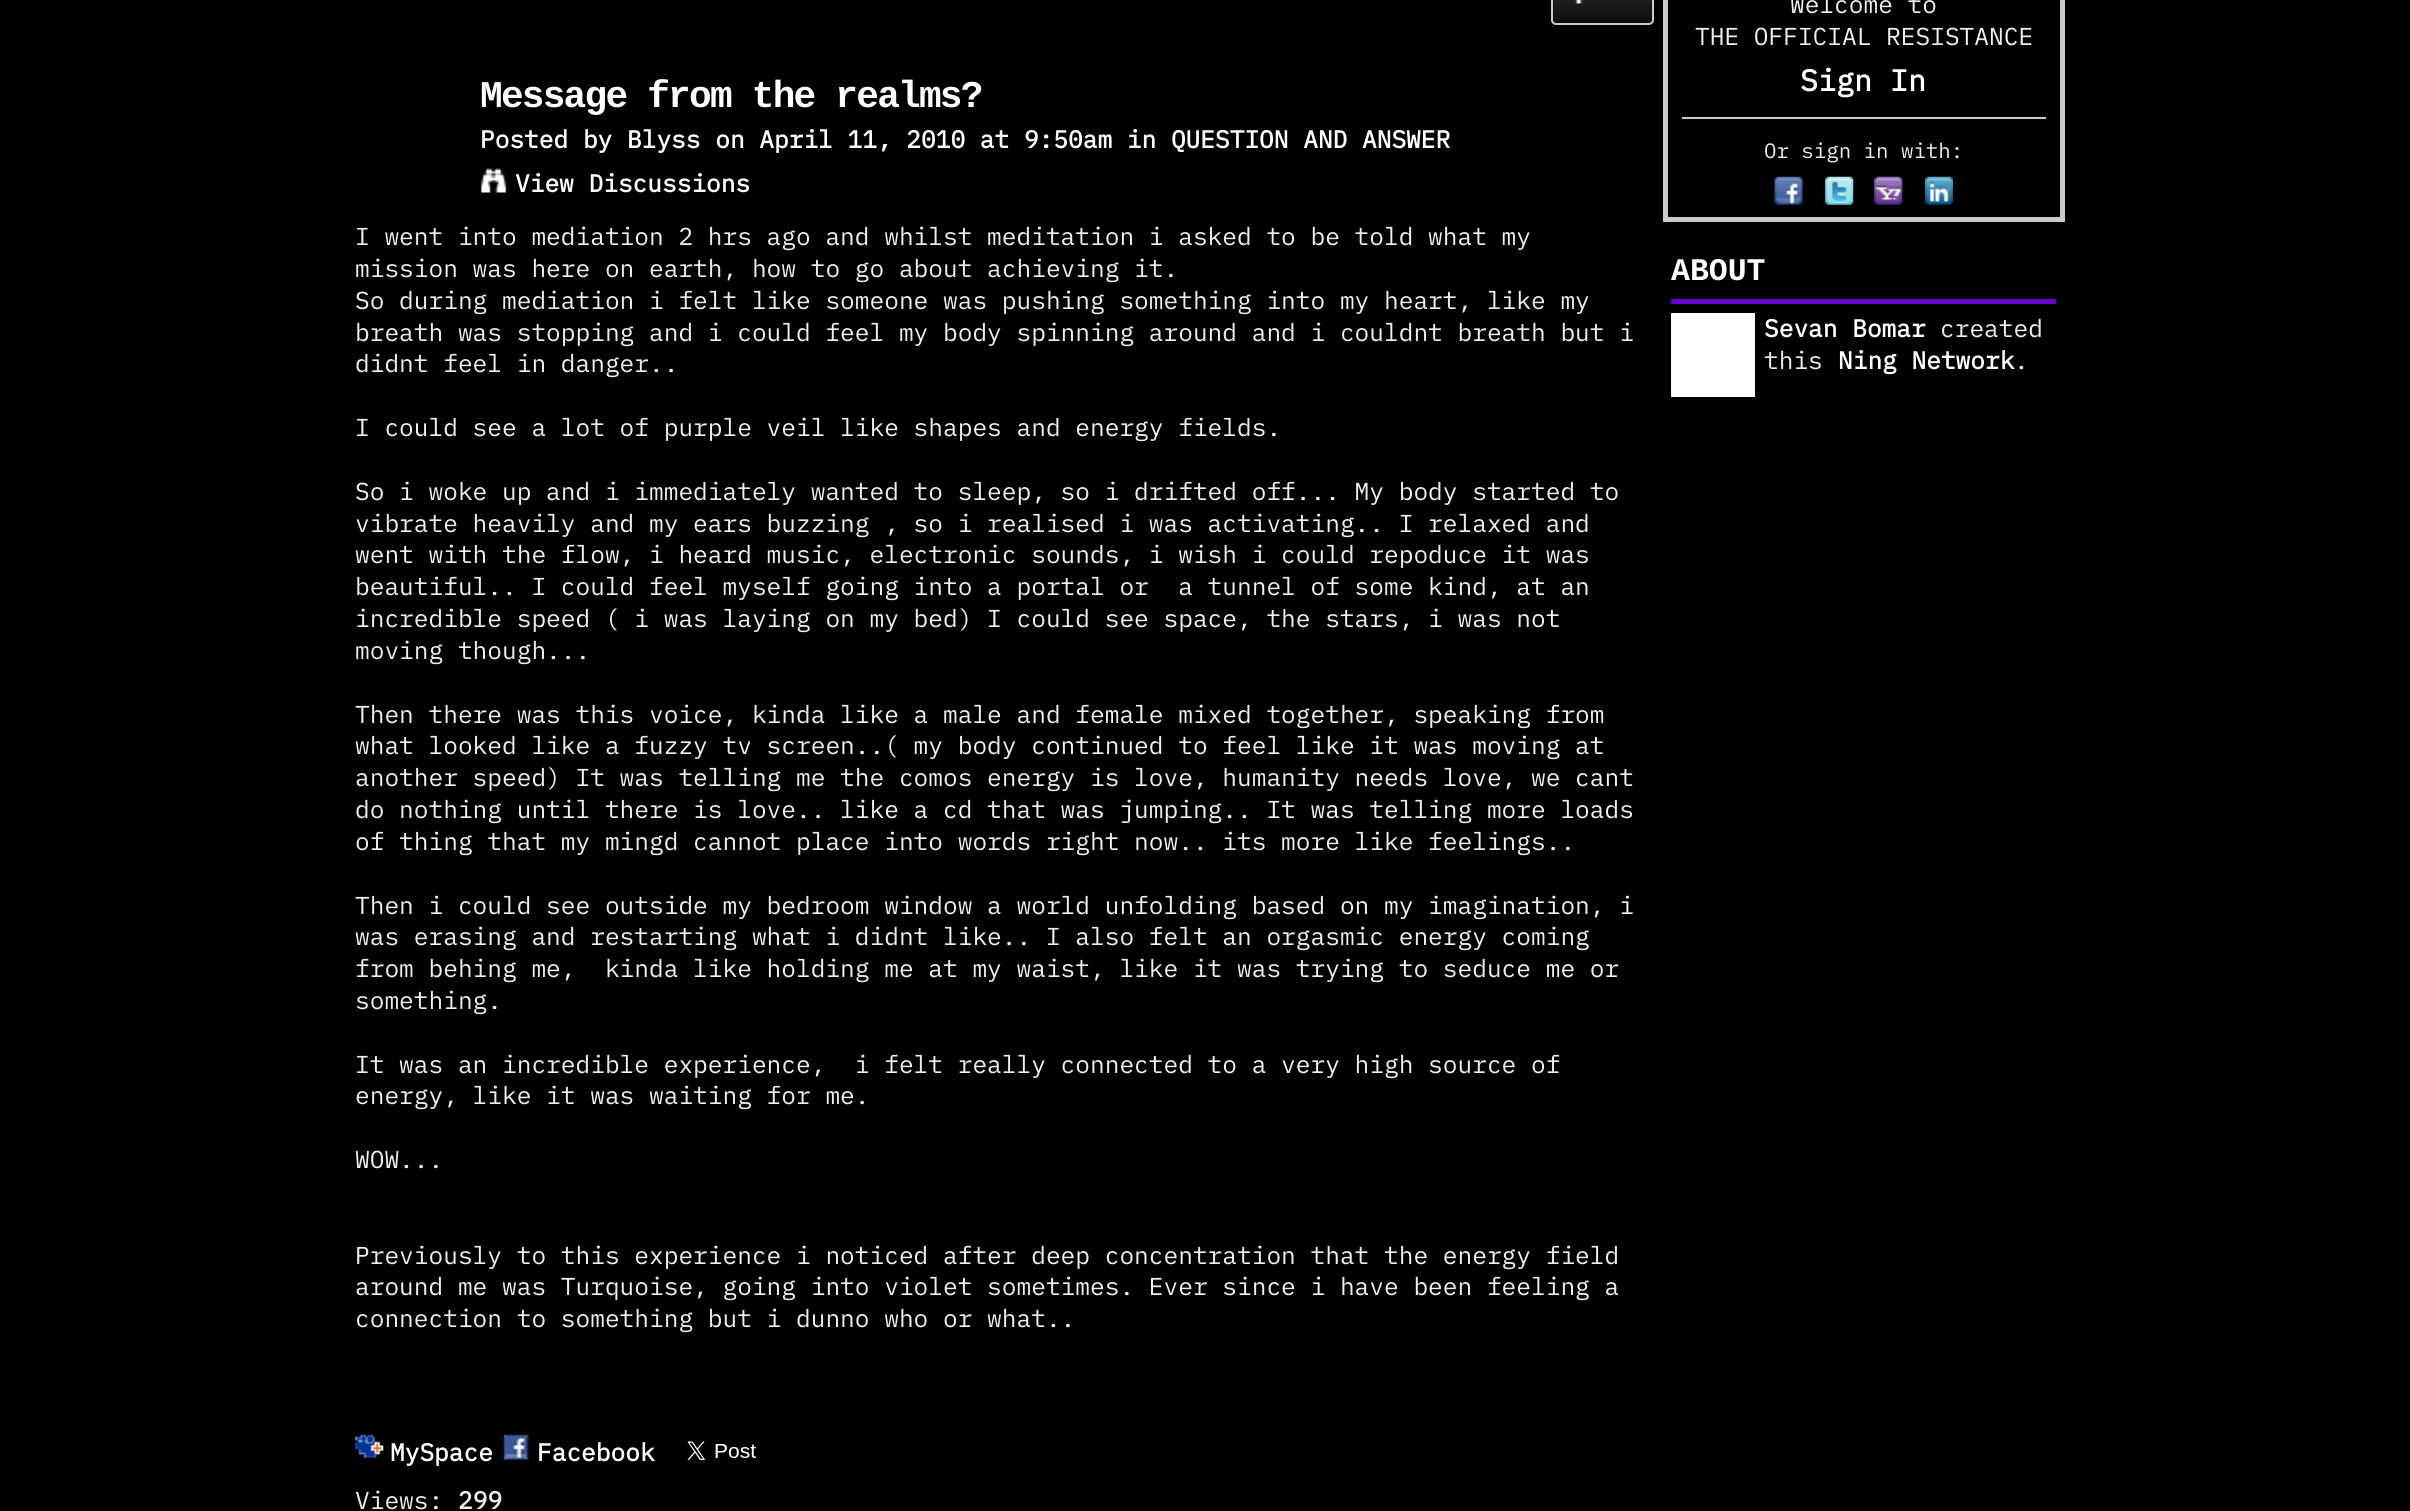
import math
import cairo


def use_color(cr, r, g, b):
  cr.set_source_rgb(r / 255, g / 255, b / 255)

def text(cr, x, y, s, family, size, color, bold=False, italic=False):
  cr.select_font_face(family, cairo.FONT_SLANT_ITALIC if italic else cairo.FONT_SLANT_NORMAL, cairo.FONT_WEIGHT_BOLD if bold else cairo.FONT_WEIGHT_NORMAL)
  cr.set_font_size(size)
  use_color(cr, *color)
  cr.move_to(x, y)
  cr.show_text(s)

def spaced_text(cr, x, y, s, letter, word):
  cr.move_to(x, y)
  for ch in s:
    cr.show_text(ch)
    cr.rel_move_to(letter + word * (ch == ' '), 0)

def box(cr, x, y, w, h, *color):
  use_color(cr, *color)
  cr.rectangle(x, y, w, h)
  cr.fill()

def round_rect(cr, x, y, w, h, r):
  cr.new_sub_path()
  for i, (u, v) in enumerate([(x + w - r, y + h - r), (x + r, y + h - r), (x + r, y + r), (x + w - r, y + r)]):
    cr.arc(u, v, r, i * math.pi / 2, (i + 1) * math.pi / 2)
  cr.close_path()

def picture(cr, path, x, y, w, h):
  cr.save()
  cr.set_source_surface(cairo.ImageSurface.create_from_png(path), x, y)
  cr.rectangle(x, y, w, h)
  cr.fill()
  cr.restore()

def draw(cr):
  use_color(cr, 0, 0, 0)
  cr.paint()
  picture(cr, "img_01.png", 1550, 0, 104, 24)
  round_rect(cr, 1552, -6, 101, 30, 4)
  use_color(cr, 203, 203, 203)
  cr.stroke()
  picture(cr, "img_02.png", 1575, 0, 8, 4)
  picture(cr, "img_03.png", 480, 167, 27, 26)
  picture(cr, "img_04.png", 355, 1434, 29, 25)
  picture(cr, "img_05.png", 503, 1434, 26, 26)
  picture(cr, "img_06.png", 687, 1441, 69, 19)
  cr.rectangle(1665.5, -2.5, 397, 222)
  cr.set_line_width(5)
  cr.stroke()
  box(cr, 1682, 117, 364, 2, 203, 203, 203)
  picture(cr, "img_07.png", 1774, 176, 29, 29)
  picture(cr, "img_08.png", 1825, 176, 29, 29)
  picture(cr, "img_09.png", 1874, 176, 29, 29)
  picture(cr, "img_10.png", 1925, 176, 28, 29)
  box(cr, 1671, 299, 385, 5, 101, 0, 208)
  box(cr, 1671, 313, 84, 84, 255, 255, 255)
  cr.select_font_face("Liberation Mono", cairo.FONT_SLANT_NORMAL, cairo.FONT_WEIGHT_BOLD)
  cr.set_font_size(37.75)
  spaced_text(cr, 480, 107, "Message from the realms?", -1.75, 0)
  text(cr, 480, 148, "Posted by Blyss on April 11, 2010 at 9:50am in QUESTION AND ANSWER", "IBM Plex Mono", 24.5, (255, 255, 255), bold=True)
  text(cr, 515, 192, "View Discussions", "IBM Plex Mono", 24.5, (255, 255, 255), bold=True)
  text(cr, 355, 245, "I went into mediation 2 hrs ago and whilst meditation i asked to be told what my", "IBM Plex Mono", 24.5, (240, 240, 240))
  text(cr, 355, 277, "mission was here on earth, how to go about achieving it.", "IBM Plex Mono", 24.5, (240, 240, 240))
  text(cr, 355, 309, "So during mediation i felt like someone was pushing something into my heart, like my", "IBM Plex Mono", 24.5, (240, 240, 240))
  text(cr, 355, 341, "breath was stopping and i could feel my body spinning around and i couldnt breath but i", "IBM Plex Mono", 24.5, (240, 240, 240))
  text(cr, 355, 372, "didnt feel in danger..", "IBM Plex Mono", 24.5, (240, 240, 240))
  text(cr, 355, 436, "I could see a lot of purple veil like shapes and energy fields.", "IBM Plex Mono", 24.5, (240, 240, 240))
  text(cr, 355, 500, "So i woke up and i immediately wanted to sleep, so i drifted off... My body started to", "IBM Plex Mono", 24.5, (240, 240, 240))
  text(cr, 355, 532, "vibrate heavily and my ears buzzing , so i realised i was activating.. I relaxed and", "IBM Plex Mono", 24.5, (240, 240, 240))
  text(cr, 355, 563, "went with the flow, i heard music, electronic sounds, i wish i could repoduce it was", "IBM Plex Mono", 24.5, (240, 240, 240))
  text(cr, 355, 595, "beautiful.. I could feel myself going into a portal or  a tunnel of some kind, at an", "IBM Plex Mono", 24.5, (240, 240, 240))
  text(cr, 355, 627, "incredible speed ( i was laying on my bed) I could see space, the stars, i was not", "IBM Plex Mono", 24.5, (240, 240, 240))
  text(cr, 355, 659, "moving though...", "IBM Plex Mono", 24.5, (240, 240, 240))
  text(cr, 355, 723, "Then there was this voice, kinda like a male and female mixed together, speaking from", "IBM Plex Mono", 24.5, (240, 240, 240))
  text(cr, 355, 754, "what looked like a fuzzy tv screen..( my body continued to feel like it was moving at", "IBM Plex Mono", 24.5, (240, 240, 240))
  text(cr, 355, 786, "another speed) It was telling me the comos energy is love, humanity needs love, we cant", "IBM Plex Mono", 24.5, (240, 240, 240))
  text(cr, 355, 818, "do nothing until there is love.. like a cd that was jumping.. It was telling more loads", "IBM Plex Mono", 24.5, (240, 240, 240))
  text(cr, 355, 850, "of thing that my mingd cannot place into words right now.. its more like feelings..", "IBM Plex Mono", 24.5, (240, 240, 240))
  text(cr, 355, 914, "Then i could see outside my bedroom window a world unfolding based on my imagination, i", "IBM Plex Mono", 24.5, (240, 240, 240))
  text(cr, 355, 945, "was erasing and restarting what i didnt like.. I also felt an orgasmic energy coming", "IBM Plex Mono", 24.5, (240, 240, 240))
  text(cr, 355, 977, "from behing me,  kinda like holding me at my waist, like it was trying to seduce me or", "IBM Plex Mono", 24.5, (240, 240, 240))
  text(cr, 355, 1009, "something.", "IBM Plex Mono", 24.5, (240, 240, 240))
  text(cr, 355, 1073, "It was an incredible experience,  i felt really connected to a very high source of", "IBM Plex Mono", 24.5, (240, 240, 240))
  text(cr, 355, 1104, "energy, like it was waiting for me.", "IBM Plex Mono", 24.5, (240, 240, 240))
  text(cr, 355, 1168, "WOW...", "IBM Plex Mono", 24.5, (240, 240, 240))
  text(cr, 355, 1264, "Previously to this experience i noticed after deep concentration that the energy field", "IBM Plex Mono", 24.5, (240, 240, 240))
  text(cr, 355, 1295, "around me was Turquoise, going into violet sometimes. Ever since i have been feeling a", "IBM Plex Mono", 24.5, (240, 240, 240))
  text(cr, 355, 1327, "connection to something but i dunno who or what..", "IBM Plex Mono", 24.5, (240, 240, 240))
  text(cr, 390, 1461, "MySpace", "IBM Plex Mono", 24.5, (255, 255, 255), bold=True)
  text(cr, 537, 1461, "Facebook", "IBM Plex Mono", 24.5, (255, 255, 255), bold=True)
  text(cr, 355, 1509, "Views:", "IBM Plex Mono", 24.5, (240, 240, 240))
  text(cr, 458, 1509, "299", "IBM Plex Mono", 24.5, (240, 240, 240), bold=True)
  text(cr, 1790, 13, "Welcome to", "IBM Plex Mono", 24.5, (240, 240, 240))
  text(cr, 1695, 45, "THE OFFICIAL RESISTANCE", "IBM Plex Mono", 24.5, (240, 240, 240))
  text(cr, 1800, 91, "Sign In", "IBM Plex Mono", 30, (255, 255, 255), bold=True)
  text(cr, 1764, 158, "Or sign in with:", "IBM Plex Mono", 20.75, (240, 240, 240))
  text(cr, 1671, 280, "ABOUT", "Liberation Mono", 31.5, (255, 255, 255), bold=True)
  text(cr, 1764, 337, "Sevan Bomar", "IBM Plex Mono", 24.5, (255, 255, 255), bold=True)
  text(cr, 1940, 337, "created", "IBM Plex Mono", 24.5, (240, 240, 240))
  text(cr, 1764, 369, "this", "IBM Plex Mono", 24.5, (240, 240, 240))
  text(cr, 1838, 369, "Ning Network", "IBM Plex Mono", 24.5, (255, 255, 255), bold=True)
  text(cr, 2014, 369, ".", "IBM Plex Mono", 24.5, (240, 240, 240))


surface = cairo.ImageSurface(cairo.FORMAT_RGB24, 2410, 1511)
cr = cairo.Context(surface)
options = cairo.FontOptions()
options.set_hint_metrics(cairo.HINT_METRICS_OFF)
options.set_hint_style(cairo.HINT_STYLE_NONE)
cr.set_font_options(options)
cr.set_miter_limit(4)
draw(cr)
surface.write_to_png("out.png")
